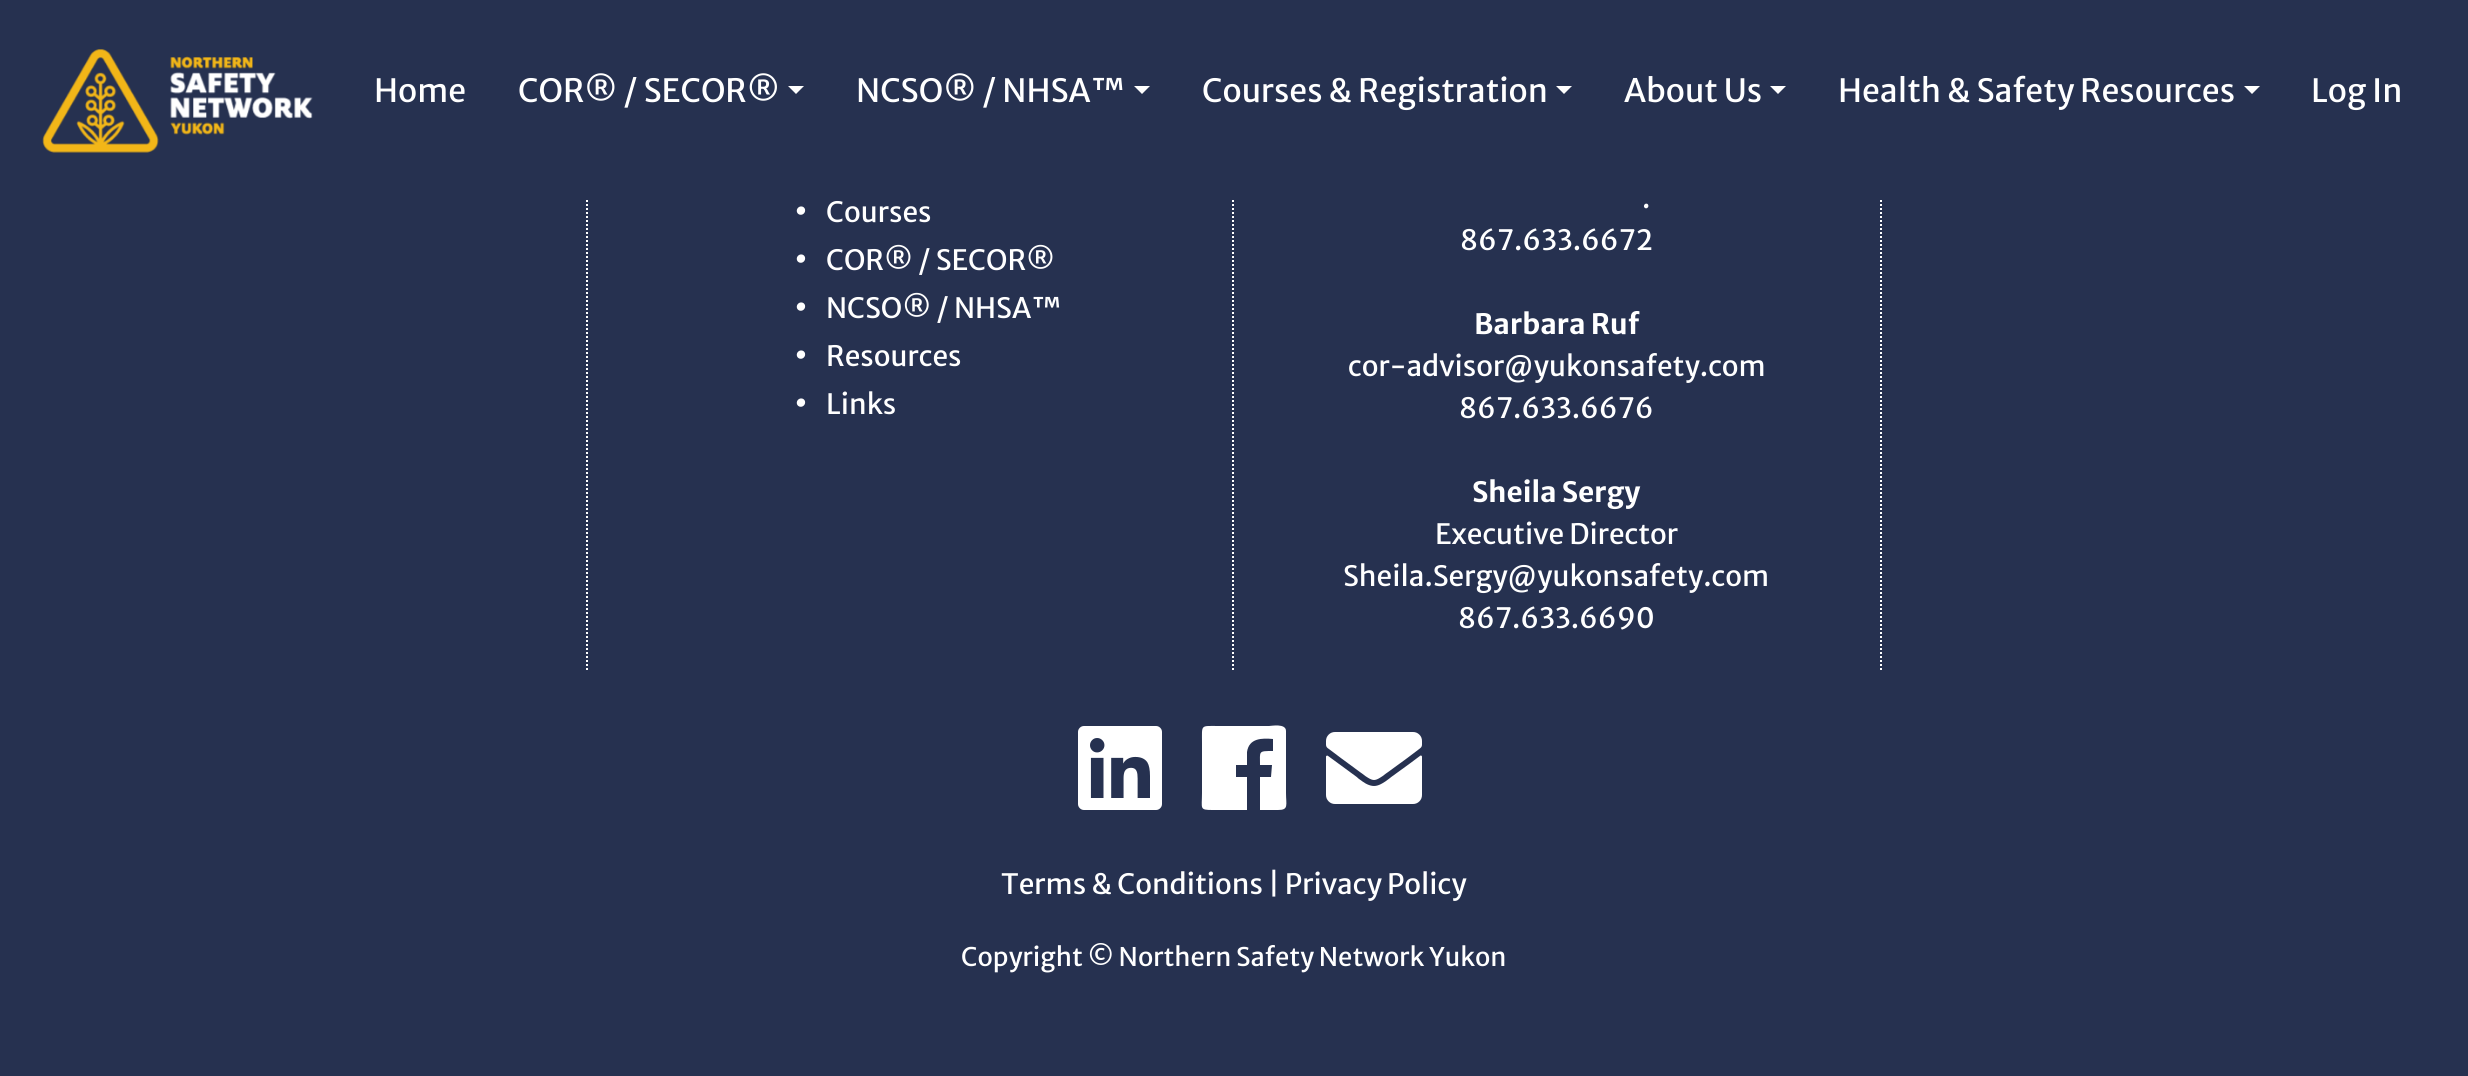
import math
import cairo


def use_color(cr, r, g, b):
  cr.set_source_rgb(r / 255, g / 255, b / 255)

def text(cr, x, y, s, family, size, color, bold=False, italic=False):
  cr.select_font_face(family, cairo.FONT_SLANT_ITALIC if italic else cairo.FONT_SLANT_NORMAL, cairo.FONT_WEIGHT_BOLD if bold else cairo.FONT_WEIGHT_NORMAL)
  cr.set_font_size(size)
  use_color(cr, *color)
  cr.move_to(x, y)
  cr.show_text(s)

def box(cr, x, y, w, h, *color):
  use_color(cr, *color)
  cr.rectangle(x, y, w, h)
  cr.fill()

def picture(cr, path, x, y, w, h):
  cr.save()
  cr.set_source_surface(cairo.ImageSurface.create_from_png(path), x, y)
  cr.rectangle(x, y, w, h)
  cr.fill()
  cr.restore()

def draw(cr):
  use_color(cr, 38, 49, 80)
  cr.paint()
  cr.new_path()
  cr.move_to(587, -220)
  cr.line_to(587, 672)
  use_color(cr, 255, 255, 255)
  cr.set_dash([2, 2])
  cr.stroke()
  cr.new_path()
  cr.move_to(1233, -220)
  cr.line_to(1233, 672)
  cr.stroke()
  cr.new_path()
  cr.move_to(1881, -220)
  cr.line_to(1881, 672)
  cr.stroke()
  box(cr, 586, 0, 1296, 198, 38, 49, 80)
  picture(cr, "img_01.png", 42, 49, 271, 104)
  use_color(cr, 255, 255, 255)
  cr.new_path()
  cr.move_to(788, 86)
  cr.line_to(804, 86)
  cr.line_to(796, 94)
  cr.close_path()
  cr.fill()
  cr.new_path()
  cr.move_to(1134, 86)
  cr.line_to(1150, 86)
  cr.line_to(1142, 94)
  cr.close_path()
  cr.fill()
  cr.new_path()
  cr.move_to(1556, 86)
  cr.line_to(1572, 86)
  cr.line_to(1564, 94)
  cr.close_path()
  cr.fill()
  cr.new_path()
  cr.move_to(1770, 86)
  cr.line_to(1786, 86)
  cr.line_to(1778, 94)
  cr.close_path()
  cr.fill()
  cr.new_path()
  cr.move_to(2244, 86)
  cr.line_to(2260, 86)
  cr.line_to(2252, 94)
  cr.close_path()
  cr.fill()
  picture(cr, "img_02.png", 1078, 726, 84, 84)
  cr.new_path()
  cr.move_to(1286, 731)
  cr.line_to(1286, 793)
  cr.curve_to(1286, 805, 1289, 810, 1278, 810)
  cr.line_to(1260, 810)
  cr.line_to(1260, 777)
  cr.line_to(1271, 777)
  cr.line_to(1272, 765)
  cr.line_to(1260, 765)
  cr.curve_to(1260, 751, 1258, 751, 1273, 751)
  cr.line_to(1273, 739)
  cr.curve_to(1262, 738, 1249, 738, 1247, 752)
  cr.line_to(1247, 765)
  cr.line_to(1236, 765)
  cr.line_to(1236, 777)
  cr.line_to(1247, 777)
  cr.line_to(1247, 810)
  cr.line_to(1213, 810)
  cr.curve_to(1199, 810, 1202, 809, 1202, 793)
  cr.line_to(1202, 743)
  cr.curve_to(1202, 724, 1200, 726, 1219, 726)
  cr.line_to(1269, 726)
  cr.curve_to(1271, 726, 1286, 723, 1286, 731)
  cr.close_path()
  cr.fill()
  picture(cr, "img_03.png", 1326, 732, 96, 72)
  text(cr, 374, 102, "Home", "Merriweather Sans", 32, (255, 255, 255))
  text(cr, 518, 102, "COR® / SECOR®", "Merriweather Sans", 32, (255, 255, 255))
  text(cr, 856, 102, "NCSO® / NHSA™", "Merriweather Sans", 32, (255, 255, 255))
  text(cr, 1202, 102, "Courses & Registration", "Merriweather Sans", 32, (255, 255, 255))
  text(cr, 1624, 102, "About Us", "Merriweather Sans", 32, (255, 255, 255))
  text(cr, 1838, 102, "Health & Safety Resources", "Merriweather Sans", 32, (255, 255, 255))
  text(cr, 2311, 102, "Log In", "Merriweather Sans", 32, (255, 255, 255))
  text(cr, 794, 222, "•", "Merriweather Sans", 32, (255, 255, 255), bold=True)
  text(cr, 826, 222, "Courses", "Merriweather Sans", 28, (255, 255, 255))
  text(cr, 794, 270, "•", "Merriweather Sans", 32, (255, 255, 255), bold=True)
  text(cr, 826, 270, "COR® / SECOR®", "Merriweather Sans", 28, (255, 255, 255))
  text(cr, 794, 318, "•", "Merriweather Sans", 32, (255, 255, 255), bold=True)
  text(cr, 826, 318, "NCSO® / NHSA™", "Merriweather Sans", 28, (255, 255, 255))
  text(cr, 794, 366, "•", "Merriweather Sans", 32, (255, 255, 255), bold=True)
  text(cr, 826, 366, "Resources", "Merriweather Sans", 28, (255, 255, 255))
  text(cr, 794, 414, "•", "Merriweather Sans", 32, (255, 255, 255), bold=True)
  text(cr, 826, 414, "Links", "Merriweather Sans", 28, (255, 255, 255))
  text(cr, 1642, 208, ".", "Merriweather Sans", 28, (255, 255, 255))
  text(cr, 1460, 250, "867.633.6672", "Merriweather Sans", 28, (255, 255, 255))
  text(cr, 1474, 334, "Barbara Ruf", "Merriweather Sans", 28, (255, 255, 255), bold=True)
  text(cr, 1348, 376, "cor-advisor@yukonsafety.com", "Merriweather Sans", 28, (255, 255, 255))
  text(cr, 1459, 418, "867.633.6676", "Merriweather Sans", 28, (255, 255, 255))
  text(cr, 1472, 502, "Sheila Sergy", "Merriweather Sans", 28, (255, 255, 255), bold=True)
  text(cr, 1435, 544, "Executive Director", "Merriweather Sans", 28, (255, 255, 255))
  text(cr, 1343, 586, "Sheila.Sergy@yukonsafety.com", "Merriweather Sans", 28, (255, 255, 255))
  text(cr, 1458, 628, "867.633.6690", "Merriweather Sans", 28, (255, 255, 255))
  text(cr, 1001, 894, "Terms & Conditions | Privacy Policy", "Merriweather Sans", 28, (255, 255, 255))
  text(cr, 961, 966, "Copyright © Northern Safety Network Yukon", "Merriweather Sans", 25.6, (255, 255, 255))


surface = cairo.ImageSurface(cairo.FORMAT_RGB24, 2468, 1076)
cr = cairo.Context(surface)
options = cairo.FontOptions()
options.set_hint_metrics(cairo.HINT_METRICS_OFF)
options.set_hint_style(cairo.HINT_STYLE_NONE)
cr.set_font_options(options)
cr.set_miter_limit(4)
draw(cr)
surface.write_to_png("out.png")
